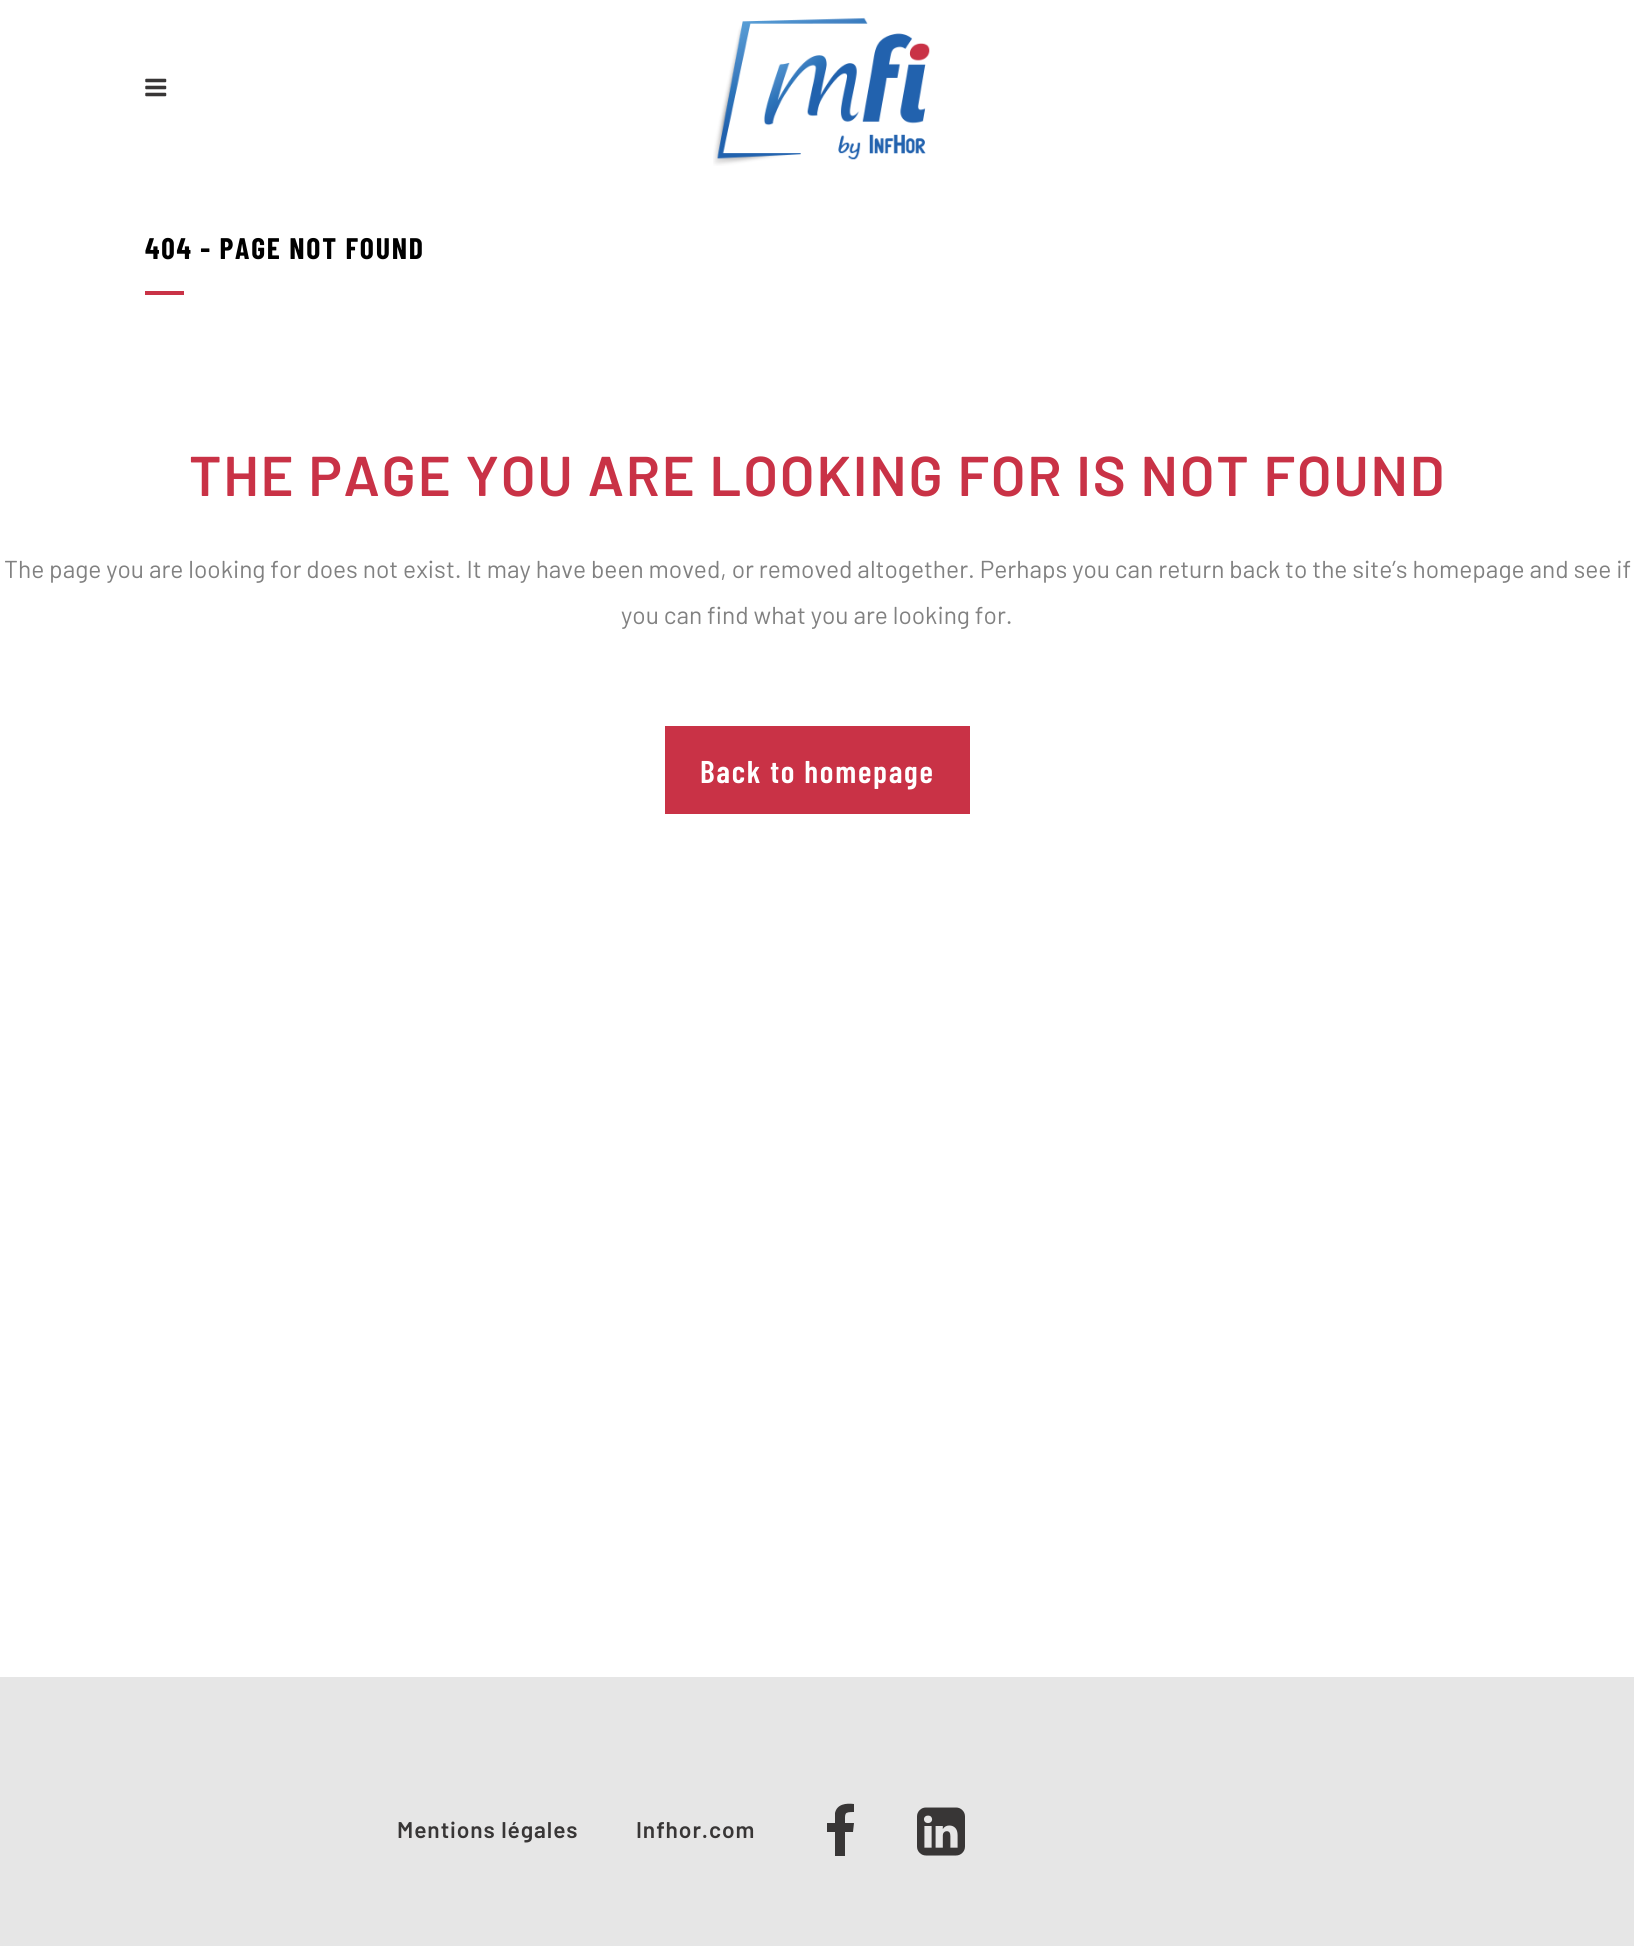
import math
import cairo


def use_color(cr, r, g, b):
  cr.set_source_rgb(r / 255, g / 255, b / 255)

def text(cr, x, y, s, family, size, color, bold=False, italic=False):
  cr.select_font_face(family, cairo.FONT_SLANT_ITALIC if italic else cairo.FONT_SLANT_NORMAL, cairo.FONT_WEIGHT_BOLD if bold else cairo.FONT_WEIGHT_NORMAL)
  cr.set_font_size(size)
  use_color(cr, *color)
  cr.move_to(x, y)
  cr.show_text(s)

def spaced_text(cr, x, y, s, letter, word):
  cr.move_to(x, y)
  for ch in s:
    cr.show_text(ch)
    cr.rel_move_to(letter + word * (ch == ' '), 0)

def box(cr, x, y, w, h, *color):
  use_color(cr, *color)
  cr.rectangle(x, y, w, h)
  cr.fill()

def picture(cr, path, x, y, w, h):
  cr.save()
  cr.set_source_surface(cairo.ImageSurface.create_from_png(path), x, y)
  cr.rectangle(x, y, w, h)
  cr.fill()
  cr.restore()

def draw(cr):
  use_color(cr, 255, 255, 255)
  cr.paint()
  picture(cr, "img_01.png", 145, 78, 22, 19)
  picture(cr, "img_02.png", 713, 17, 217, 149)
  box(cr, 145, 291, 39, 4, 201, 50, 70)
  box(cr, 665, 726, 305, 88, 201, 50, 70)
  box(cr, 0, 1677, 1634, 269, 230, 230, 230)
  use_color(cr, 56, 54, 54)
  cr.new_path()
  cr.move_to(854, 1804)
  cr.line_to(854, 1812)
  cr.curve_to(844, 1812, 845, 1813, 845, 1823)
  cr.line_to(854, 1823)
  cr.line_to(853, 1832)
  cr.line_to(845, 1832)
  cr.line_to(845, 1856)
  cr.line_to(835, 1856)
  cr.line_to(835, 1832)
  cr.line_to(827, 1832)
  cr.line_to(827, 1823)
  cr.line_to(835, 1823)
  cr.line_to(835, 1813)
  cr.curve_to(837, 1804, 846, 1803, 854, 1804)
  cr.close_path()
  cr.fill()
  picture(cr, "img_03.png", 917, 1807, 48, 49)
  cr.select_font_face("Barlow Condensed", cairo.FONT_SLANT_NORMAL, cairo.FONT_WEIGHT_BOLD)
  cr.set_font_size(29.75)
  use_color(cr, 0, 0, 0)
  spaced_text(cr, 145, 259, "404 - PAGE NOT FOUND", 1.75, 0)
  cr.select_font_face("Barlow SemiBold")
  cr.set_font_size(56)
  use_color(cr, 201, 50, 70)
  spaced_text(cr, 189, 496, "THE PAGE YOU ARE LOOKING FOR IS NOT FOUND", 1.75, 0)
  text(cr, 4, 578, "The page you are looking for does not exist. It may have been moved, or removed altogether. Perhaps you can return back to the site’s homepage and see if", "Barlow", 24.5, (129, 129, 129))
  text(cr, 621, 624, "you can find what you are looking for.", "Barlow", 24.5, (129, 129, 129))
  cr.select_font_face("Barlow Condensed SemiBold")
  cr.set_font_size(31.5)
  use_color(cr, 255, 255, 255)
  spaced_text(cr, 700, 783, "Back to homepage", 1.75, 0)
  cr.select_font_face("Barlow SemiBold")
  cr.set_font_size(22.75)
  use_color(cr, 56, 54, 54)
  spaced_text(cr, 397, 1838, "Mentions légales", 0.9, 0)
  spaced_text(cr, 636, 1838, "Infhor.com", 0.9, 0)


surface = cairo.ImageSurface(cairo.FORMAT_RGB24, 1634, 1946)
cr = cairo.Context(surface)
options = cairo.FontOptions()
options.set_hint_metrics(cairo.HINT_METRICS_OFF)
options.set_hint_style(cairo.HINT_STYLE_NONE)
cr.set_font_options(options)
cr.set_miter_limit(4)
draw(cr)
surface.write_to_png("out.png")
